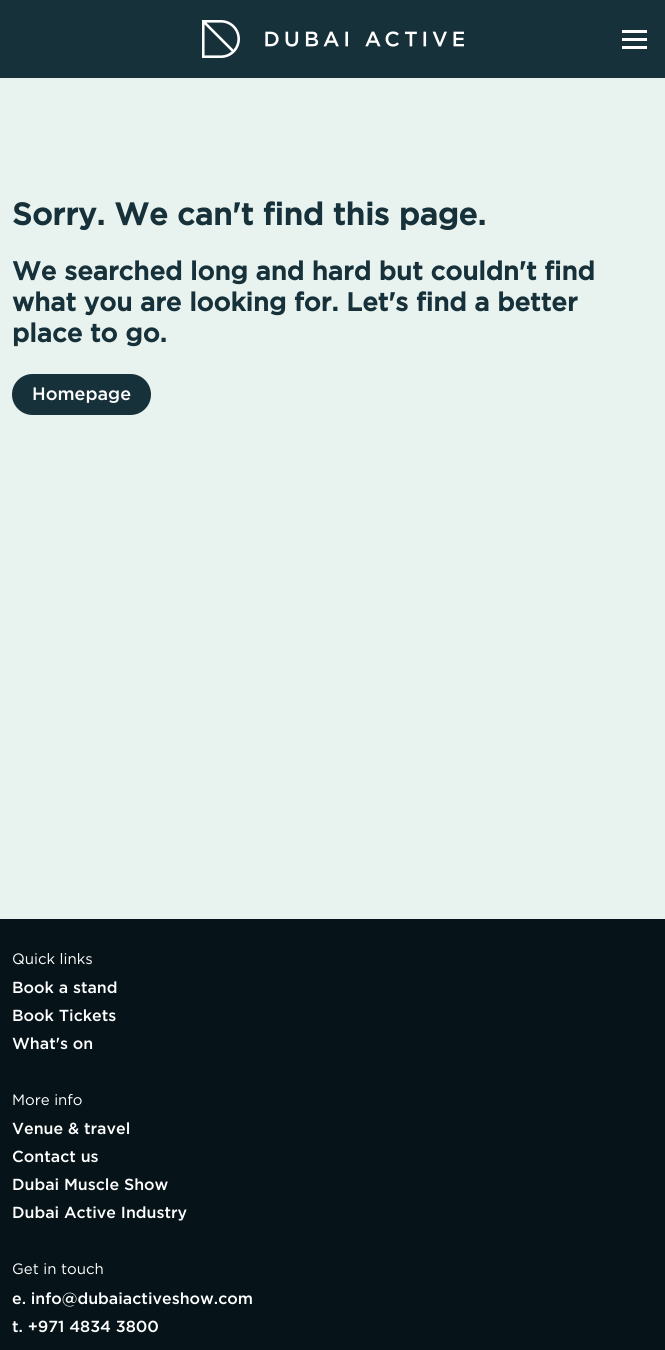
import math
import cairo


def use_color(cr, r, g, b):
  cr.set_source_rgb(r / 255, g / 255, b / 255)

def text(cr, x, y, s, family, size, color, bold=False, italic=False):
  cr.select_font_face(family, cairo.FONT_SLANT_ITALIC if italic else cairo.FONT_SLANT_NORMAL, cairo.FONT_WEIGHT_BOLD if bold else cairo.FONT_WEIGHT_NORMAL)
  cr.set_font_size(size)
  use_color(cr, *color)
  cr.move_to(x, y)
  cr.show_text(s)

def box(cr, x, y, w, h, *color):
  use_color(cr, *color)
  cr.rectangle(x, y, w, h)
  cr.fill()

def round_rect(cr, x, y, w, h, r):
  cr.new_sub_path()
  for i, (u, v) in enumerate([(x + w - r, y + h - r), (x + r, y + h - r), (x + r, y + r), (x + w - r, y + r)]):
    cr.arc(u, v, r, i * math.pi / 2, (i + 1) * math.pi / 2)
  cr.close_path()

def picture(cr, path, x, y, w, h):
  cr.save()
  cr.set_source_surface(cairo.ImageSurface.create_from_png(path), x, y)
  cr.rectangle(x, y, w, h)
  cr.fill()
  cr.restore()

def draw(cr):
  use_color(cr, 6, 20, 25)
  cr.paint()
  box(cr, 0, 0, 665, 78, 23, 49, 58)
  picture(cr, "img_01.png", 202, 20, 262, 38)
  box(cr, 622, 30, 25, 3, 255, 255, 255)
  box(cr, 622, 38, 25, 3, 255, 255, 255)
  box(cr, 622, 46, 25, 3, 255, 255, 255)
  box(cr, 0, 78, 665, 841, 232, 243, 239)
  use_color(cr, 23, 49, 58)
  round_rect(cr, 12, 374, 139, 41, 20.5)
  cr.fill()
  text(cr, 12, 225, "Sorry. We can't find this page.", "Gotham", 31.1, (23, 49, 58), bold=True)
  text(cr, 12, 280, "We searched long and hard but couldn't find", "Gotham", 25.85, (23, 49, 58), bold=True)
  text(cr, 12, 311, "what you are looking for. Let's find a better", "Gotham", 25.85, (23, 49, 58), bold=True)
  text(cr, 12, 342, "place to go.", "Gotham", 25.85, (23, 49, 58), bold=True)
  text(cr, 32, 400, "Homepage", "Gotham Medium", 18, (255, 255, 255))
  text(cr, 12, 964, "Quick links", "Gotham", 15, (255, 255, 255))
  text(cr, 12, 993, "Book a stand", "Gotham Medium", 16, (255, 255, 255))
  text(cr, 12, 1021, "Book Tickets", "Gotham Medium", 16, (255, 255, 255))
  text(cr, 12, 1049, "What's on", "Gotham Medium", 16, (255, 255, 255))
  text(cr, 12, 1105, "More info", "Gotham", 15, (255, 255, 255))
  text(cr, 12, 1134, "Venue & travel", "Gotham Medium", 16, (255, 255, 255))
  text(cr, 12, 1162, "Contact us", "Gotham Medium", 16, (255, 255, 255))
  text(cr, 12, 1190, "Dubai Muscle Show", "Gotham Medium", 16, (255, 255, 255))
  text(cr, 12, 1218, "Dubai Active Industry", "Gotham Medium", 16, (255, 255, 255))
  text(cr, 12, 1274, "Get in touch", "Gotham", 15, (255, 255, 255))
  text(cr, 12, 1304, "e. info@dubaiactiveshow.com", "Gotham Medium", 16, (255, 255, 255))
  text(cr, 12, 1332, "t. +971 4834 3800", "Gotham Medium", 16, (255, 255, 255))


surface = cairo.ImageSurface(cairo.FORMAT_RGB24, 665, 1350)
cr = cairo.Context(surface)
options = cairo.FontOptions()
options.set_hint_metrics(cairo.HINT_METRICS_OFF)
options.set_hint_style(cairo.HINT_STYLE_NONE)
cr.set_font_options(options)
cr.set_miter_limit(4)
draw(cr)
surface.write_to_png("out.png")
